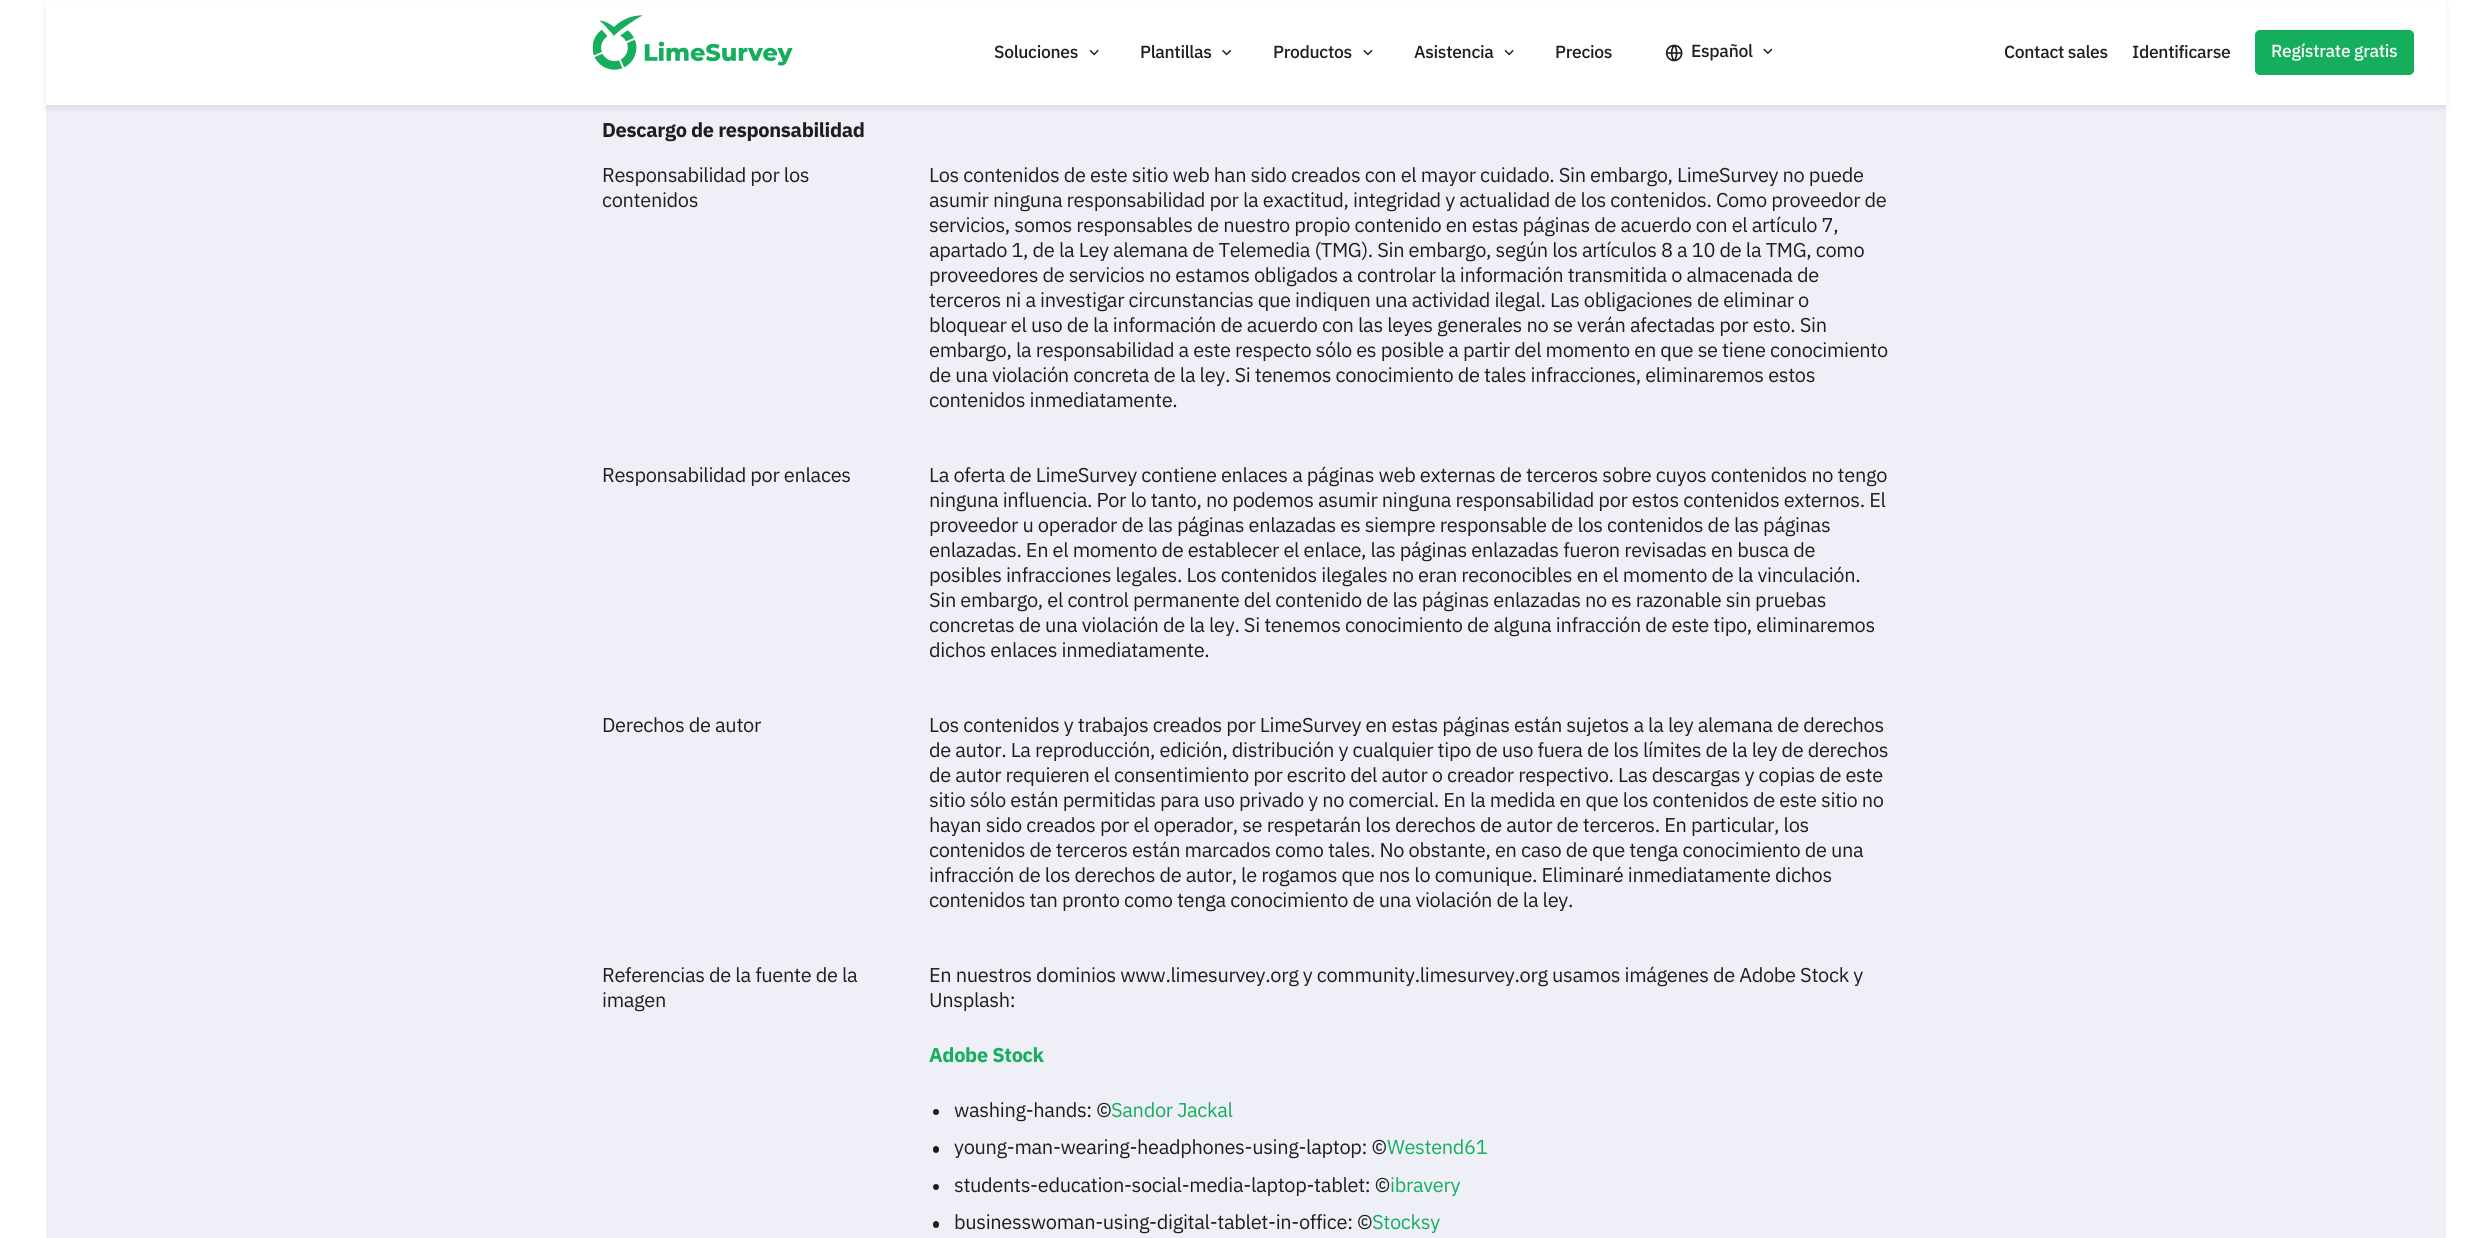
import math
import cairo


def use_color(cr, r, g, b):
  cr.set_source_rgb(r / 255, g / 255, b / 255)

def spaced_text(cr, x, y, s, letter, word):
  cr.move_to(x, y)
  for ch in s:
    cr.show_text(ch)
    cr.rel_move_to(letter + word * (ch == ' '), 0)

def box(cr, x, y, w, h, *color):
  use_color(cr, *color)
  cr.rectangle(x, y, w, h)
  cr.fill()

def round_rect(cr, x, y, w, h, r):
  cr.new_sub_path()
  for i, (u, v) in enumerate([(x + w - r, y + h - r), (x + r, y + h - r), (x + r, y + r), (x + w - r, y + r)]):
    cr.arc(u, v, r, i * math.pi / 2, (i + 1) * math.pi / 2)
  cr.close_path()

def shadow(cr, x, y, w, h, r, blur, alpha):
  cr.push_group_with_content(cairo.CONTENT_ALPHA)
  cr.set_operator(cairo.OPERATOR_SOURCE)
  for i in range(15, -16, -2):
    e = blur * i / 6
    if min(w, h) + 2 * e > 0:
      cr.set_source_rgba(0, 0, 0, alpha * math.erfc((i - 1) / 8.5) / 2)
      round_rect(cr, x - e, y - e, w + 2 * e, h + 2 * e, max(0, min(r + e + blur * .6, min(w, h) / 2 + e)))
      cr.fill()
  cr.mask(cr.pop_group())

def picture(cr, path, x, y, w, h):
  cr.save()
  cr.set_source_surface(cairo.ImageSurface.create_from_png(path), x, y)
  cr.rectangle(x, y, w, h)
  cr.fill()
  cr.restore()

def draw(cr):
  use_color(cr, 255, 255, 255)
  cr.paint()
  box(cr, 46, 105, 2400, 1133, 238, 239, 247)
  use_color(cr, 0, 0, 0)
  shadow(cr, 46, 4, 2400, 105, 0, 3, 0.08)
  box(cr, 46, 1, 2400, 104, 255, 255, 255)
  picture(cr, "img_01.png", 593, 15, 200, 55)
  picture(cr, "img_02.png", 1089, 49, 10, 7)
  picture(cr, "img_03.png", 1222, 49, 10, 7)
  picture(cr, "img_04.png", 1363, 49, 10, 7)
  picture(cr, "img_02.png", 1504, 49, 10, 7)
  picture(cr, "img_05.png", 1665, 44, 18, 18)
  picture(cr, "img_06.png", 1763, 48, 10, 7)
  use_color(cr, 20, 174, 92)
  round_rect(cr, 2255.5, 30.5, 158, 44, 4.5)
  cr.fill_preserve()
  cr.set_line_width(1)
  cr.stroke()
  use_color(cr, 30, 30, 30)
  cr.arc(936, 1112, 3, 0, 2 * math.pi)
  cr.fill()
  round_rect(cr, 933, 1146, 6, 7, 3)
  cr.fill()
  cr.arc(936, 1187, 3, 0, 2 * math.pi)
  cr.fill()
  round_rect(cr, 933, 1221, 6, 7, 3)
  cr.fill()
  cr.select_font_face("IBM Plex Sans Medium")
  cr.set_font_size(17.5)
  spaced_text(cr, 994, 58, "Soluciones", -0.34, 0)
  spaced_text(cr, 1140, 58, "Plantillas", -0.34, 0)
  spaced_text(cr, 1273, 58, "Productos", -0.34, 0)
  spaced_text(cr, 1414, 58, "Asistencia", -0.34, 0)
  spaced_text(cr, 1555, 58, "Precios", -0.34, 0)
  spaced_text(cr, 1691, 57, "Español", -0.34, 0)
  spaced_text(cr, 2004, 58, "Contact sales", -0.34, 0)
  spaced_text(cr, 2132, 58, "Identificarse", -0.34, 0)
  use_color(cr, 255, 255, 255)
  spaced_text(cr, 2271, 57, "Regístrate gratis", -0.34, 0)
  cr.select_font_face("IBM Plex Sans", cairo.FONT_SLANT_NORMAL, cairo.FONT_WEIGHT_BOLD)
  cr.set_font_size(20)
  use_color(cr, 30, 30, 30)
  spaced_text(cr, 602, 137, "Descargo de responsabilidad", -0.34, 0)
  cr.select_font_face("IBM Plex Sans")
  spaced_text(cr, 602, 182, "Responsabilidad por los", -0.34, 0)
  spaced_text(cr, 602, 207, "contenidos", -0.34, 0)
  spaced_text(cr, 929, 182, "Los contenidos de este sitio web han sido creados con el mayor cuidado. Sin embargo, LimeSurvey no puede", -0.34, 0)
  spaced_text(cr, 929, 207, "asumir ninguna responsabilidad por la exactitud, integridad y actualidad de los contenidos. Como proveedor de", -0.34, 0)
  spaced_text(cr, 929, 232, "servicios, somos responsables de nuestro propio contenido en estas páginas de acuerdo con el artículo 7,", -0.34, 0)
  spaced_text(cr, 929, 257, "apartado 1, de la Ley alemana de Telemedia (TMG). Sin embargo, según los artículos 8 a 10 de la TMG, como", -0.34, 0)
  spaced_text(cr, 929, 282, "proveedores de servicios no estamos obligados a controlar la información transmitida o almacenada de", -0.34, 0)
  spaced_text(cr, 929, 307, "terceros ni a investigar circunstancias que indiquen una actividad ilegal. Las obligaciones de eliminar o", -0.34, 0)
  spaced_text(cr, 929, 332, "bloquear el uso de la información de acuerdo con las leyes generales no se verán afectadas por esto. Sin", -0.34, 0)
  spaced_text(cr, 929, 357, "embargo, la responsabilidad a este respecto sólo es posible a partir del momento en que se tiene conocimiento", -0.34, 0)
  spaced_text(cr, 929, 382, "de una violación concreta de la ley. Si tenemos conocimiento de tales infracciones, eliminaremos estos", -0.34, 0)
  spaced_text(cr, 929, 407, "contenidos inmediatamente.", -0.34, 0)
  spaced_text(cr, 602, 482, "Responsabilidad por enlaces", -0.34, 0)
  spaced_text(cr, 929, 482, "La oferta de LimeSurvey contiene enlaces a páginas web externas de terceros sobre cuyos contenidos no tengo", -0.34, 0)
  spaced_text(cr, 929, 507, "ninguna influencia. Por lo tanto, no podemos asumir ninguna responsabilidad por estos contenidos externos. El", -0.34, 0)
  spaced_text(cr, 929, 532, "proveedor u operador de las páginas enlazadas es siempre responsable de los contenidos de las páginas", -0.34, 0)
  spaced_text(cr, 929, 557, "enlazadas. En el momento de establecer el enlace, las páginas enlazadas fueron revisadas en busca de", -0.34, 0)
  spaced_text(cr, 929, 582, "posibles infracciones legales. Los contenidos ilegales no eran reconocibles en el momento de la vinculación.", -0.34, 0)
  spaced_text(cr, 929, 607, "Sin embargo, el control permanente del contenido de las páginas enlazadas no es razonable sin pruebas", -0.34, 0)
  spaced_text(cr, 929, 632, "concretas de una violación de la ley. Si tenemos conocimiento de alguna infracción de este tipo, eliminaremos", -0.34, 0)
  spaced_text(cr, 929, 657, "dichos enlaces inmediatamente.", -0.34, 0)
  spaced_text(cr, 602, 732, "Derechos de autor", -0.34, 0)
  spaced_text(cr, 929, 732, "Los contenidos y trabajos creados por LimeSurvey en estas páginas están sujetos a la ley alemana de derechos", -0.34, 0)
  spaced_text(cr, 929, 757, "de autor. La reproducción, edición, distribución y cualquier tipo de uso fuera de los límites de la ley de derechos", -0.34, 0)
  spaced_text(cr, 929, 782, "de autor requieren el consentimiento por escrito del autor o creador respectivo. Las descargas y copias de este", -0.34, 0)
  spaced_text(cr, 929, 807, "sitio sólo están permitidas para uso privado y no comercial. En la medida en que los contenidos de este sitio no", -0.34, 0)
  spaced_text(cr, 929, 832, "hayan sido creados por el operador, se respetarán los derechos de autor de terceros. En particular, los", -0.34, 0)
  spaced_text(cr, 929, 857, "contenidos de terceros están marcados como tales. No obstante, en caso de que tenga conocimiento de una", -0.34, 0)
  spaced_text(cr, 929, 882, "infracción de los derechos de autor, le rogamos que nos lo comunique. Eliminaré inmediatamente dichos", -0.34, 0)
  spaced_text(cr, 929, 907, "contenidos tan pronto como tenga conocimiento de una violación de la ley.", -0.34, 0)
  spaced_text(cr, 602, 982, "Referencias de la fuente de la", -0.34, 0)
  spaced_text(cr, 602, 1007, "imagen", -0.34, 0)
  spaced_text(cr, 929, 982, "En nuestros dominios www.limesurvey.org y community.limesurvey.org usamos imágenes de Adobe Stock y", -0.34, 0)
  spaced_text(cr, 929, 1007, "Unsplash:", -0.34, 0)
  cr.select_font_face("IBM Plex Sans", cairo.FONT_SLANT_NORMAL, cairo.FONT_WEIGHT_BOLD)
  use_color(cr, 20, 174, 92)
  spaced_text(cr, 929, 1062, "Adobe Stock", -0.34, 0)
  cr.select_font_face("IBM Plex Sans")
  use_color(cr, 30, 30, 30)
  spaced_text(cr, 954, 1117, "washing-hands: ©", -0.34, 0)
  use_color(cr, 20, 174, 92)
  spaced_text(cr, 1111, 1117, "Sandor Jackal", -0.34, 0)
  use_color(cr, 30, 30, 30)
  spaced_text(cr, 954, 1154, "young-man-wearing-headphones-using-laptop: ©", -0.34, 0)
  use_color(cr, 20, 174, 92)
  spaced_text(cr, 1387, 1154, "Westend61", -0.34, 0)
  use_color(cr, 30, 30, 30)
  spaced_text(cr, 954, 1192, "students-education-social-media-laptop-tablet: ©", -0.34, 0)
  use_color(cr, 20, 174, 92)
  spaced_text(cr, 1390, 1192, "ibravery", -0.34, 0)
  use_color(cr, 30, 30, 30)
  spaced_text(cr, 954, 1229, "businesswoman-using-digital-tablet-in-office: ©", -0.34, 0)
  use_color(cr, 20, 174, 92)
  spaced_text(cr, 1372, 1229, "Stocksy", -0.34, 0)


surface = cairo.ImageSurface(cairo.FORMAT_RGB24, 2492, 1238)
cr = cairo.Context(surface)
options = cairo.FontOptions()
options.set_hint_metrics(cairo.HINT_METRICS_OFF)
options.set_hint_style(cairo.HINT_STYLE_NONE)
cr.set_font_options(options)
cr.set_miter_limit(4)
draw(cr)
surface.write_to_png("out.png")
